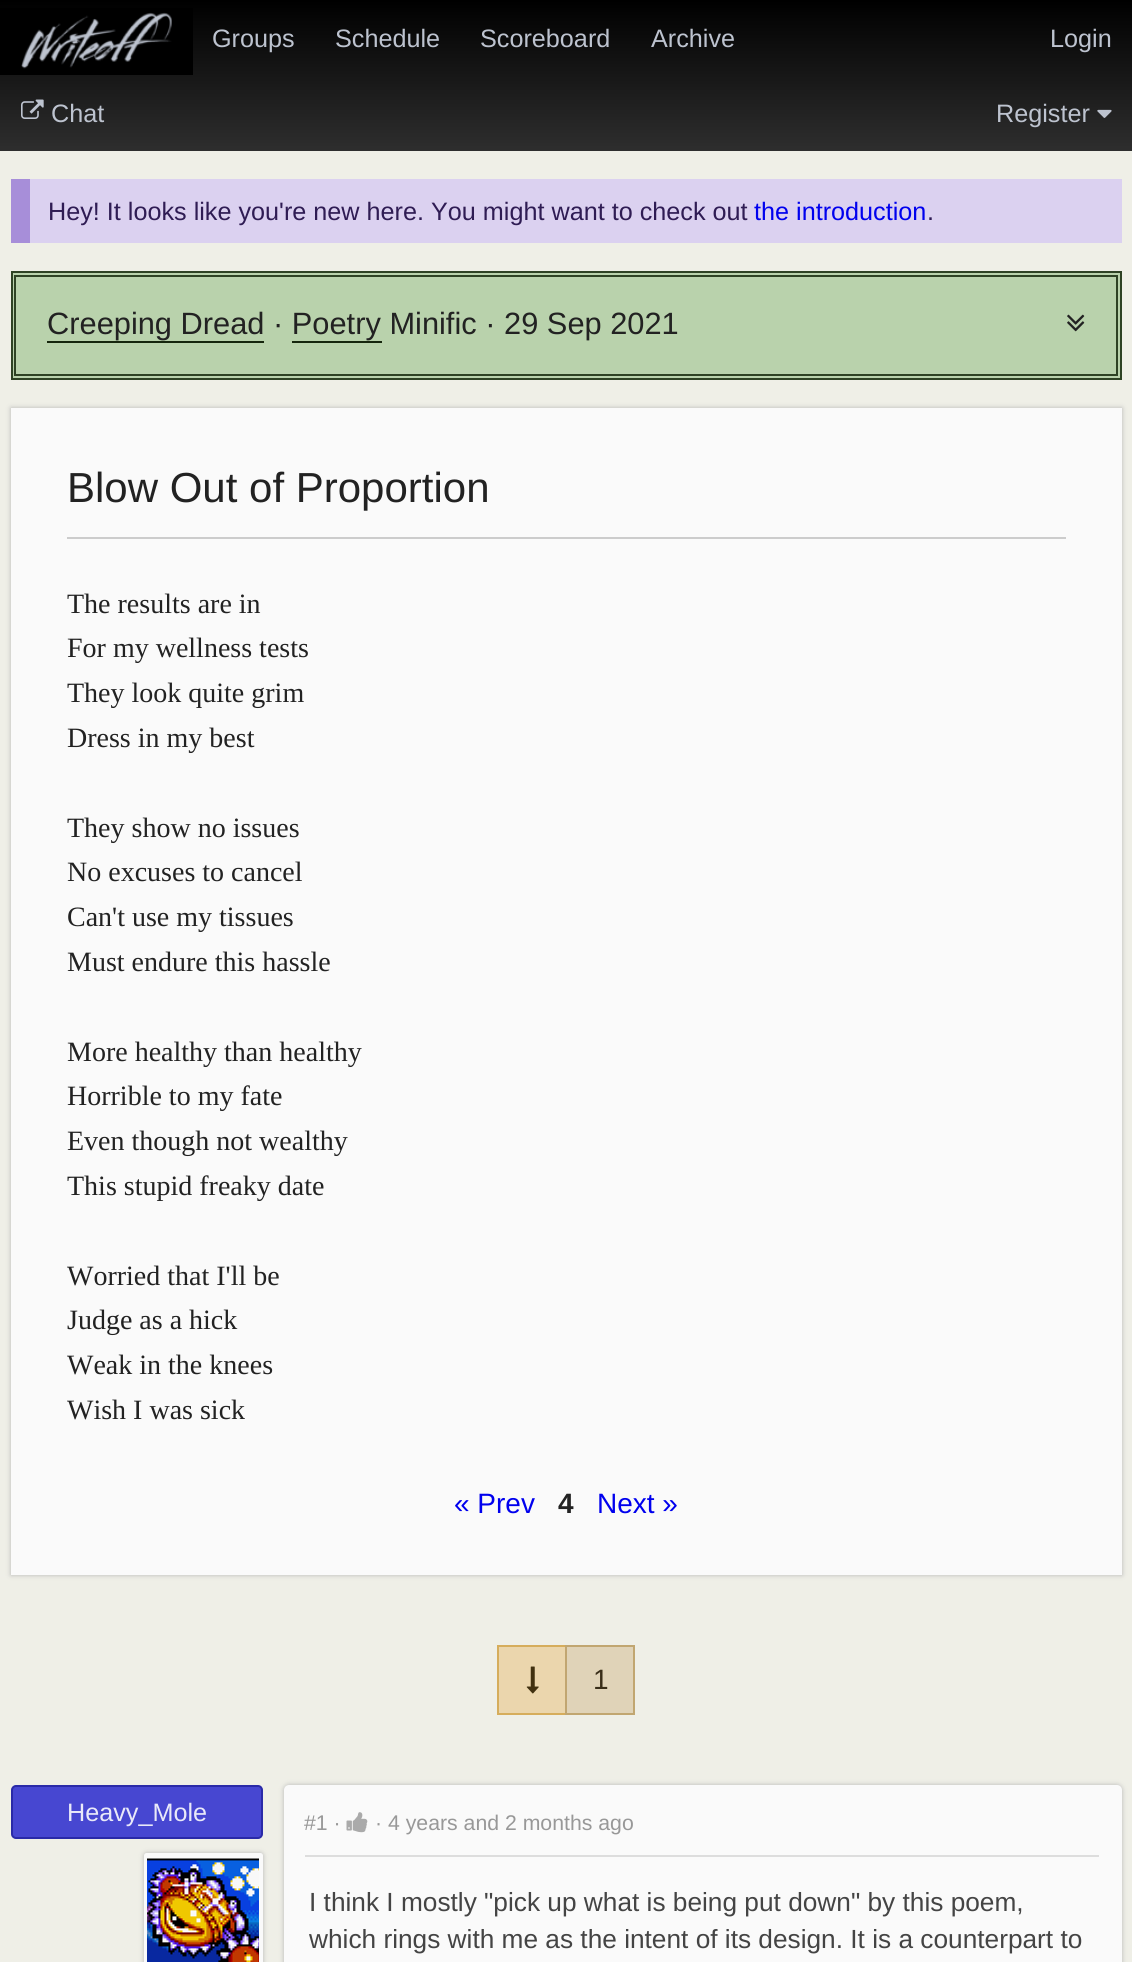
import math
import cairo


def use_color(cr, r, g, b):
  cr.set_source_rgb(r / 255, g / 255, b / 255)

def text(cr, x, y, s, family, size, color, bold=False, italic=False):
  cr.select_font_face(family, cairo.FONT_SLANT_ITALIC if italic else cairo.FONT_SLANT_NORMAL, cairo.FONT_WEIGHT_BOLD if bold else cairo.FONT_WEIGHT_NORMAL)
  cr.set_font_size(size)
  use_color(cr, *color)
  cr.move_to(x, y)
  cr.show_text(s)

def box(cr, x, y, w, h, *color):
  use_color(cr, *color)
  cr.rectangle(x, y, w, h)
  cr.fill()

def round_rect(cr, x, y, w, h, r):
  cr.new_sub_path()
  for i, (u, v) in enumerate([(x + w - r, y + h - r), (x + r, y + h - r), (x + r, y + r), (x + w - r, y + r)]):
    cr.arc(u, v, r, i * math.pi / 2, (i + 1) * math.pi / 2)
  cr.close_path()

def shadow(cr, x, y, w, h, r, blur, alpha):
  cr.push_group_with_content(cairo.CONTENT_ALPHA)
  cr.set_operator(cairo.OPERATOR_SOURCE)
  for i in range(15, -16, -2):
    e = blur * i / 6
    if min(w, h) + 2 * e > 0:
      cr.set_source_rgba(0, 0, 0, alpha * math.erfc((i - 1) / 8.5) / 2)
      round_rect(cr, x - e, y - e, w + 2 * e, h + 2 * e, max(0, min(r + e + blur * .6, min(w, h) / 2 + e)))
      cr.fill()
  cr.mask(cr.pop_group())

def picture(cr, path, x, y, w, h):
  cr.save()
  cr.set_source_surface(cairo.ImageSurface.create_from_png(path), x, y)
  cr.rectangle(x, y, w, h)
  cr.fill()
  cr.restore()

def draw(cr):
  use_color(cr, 239, 239, 231)
  cr.paint()
  gradient = cairo.LinearGradient(566, 0, 566, 151)
  gradient.add_color_stop_rgba(0, 0, 0, 0, 1)
  gradient.add_color_stop_rgba(1, 0.18, 0.18, 0.18, 1)
  cr.set_source(gradient)
  cr.rectangle(0, 0, 1132, 151)
  cr.fill()
  box(cr, 0, 8, 193, 67, 0, 0, 0)
  picture(cr, "img_01.png", 21, 12, 151, 57)
  picture(cr, "img_02.png", 21, 99, 23, 20)
  picture(cr, "img_03.png", 1097, 109, 15, 9)
  box(cr, 30, 179, 1092, 64, 219, 209, 240)
  box(cr, 11, 179, 19, 64, 167, 142, 217)
  use_color(cr, 185, 210, 172)
  cr.rectangle(12, 272, 1109, 107)
  cr.fill_preserve()
  use_color(cr, 46, 66, 36)
  cr.stroke()
  cr.rectangle(15, 276, 1102, 99)
  cr.stroke()
  box(cr, 47, 341, 217, 2, 21, 38, 13)
  box(cr, 292, 341, 90, 2, 21, 38, 13)
  picture(cr, "img_04.png", 1067, 314, 18, 18)
  use_color(cr, 182, 182, 182)
  shadow(cr, 11, 408, 1111, 1167, 0, 2.5, 1)
  box(cr, 11, 408, 1111, 1167, 250, 250, 250)
  box(cr, 67, 537, 999, 2, 204, 204, 204)
  use_color(cr, 235, 214, 173)
  cr.rectangle(498, 1646, 68, 68)
  cr.fill_preserve()
  use_color(cr, 214, 173, 92)
  cr.stroke()
  picture(cr, "img_05.png", 526, 1666, 13, 28)
  use_color(cr, 224, 211, 184)
  cr.rectangle(566, 1646, 68, 68)
  cr.fill_preserve()
  use_color(cr, 193, 166, 113)
  cr.stroke()
  use_color(cr, 71, 71, 209)
  round_rect(cr, 12, 1786, 250, 52, 4)
  cr.fill_preserve()
  use_color(cr, 42, 42, 168)
  cr.stroke()
  use_color(cr, 182, 182, 182)
  shadow(cr, 144, 1853, 119, 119, 2.5, 2.5, 1)
  use_color(cr, 250, 250, 250)
  round_rect(cr, 144, 1853, 119, 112, 2.5)
  cr.fill()
  picture(cr, "img_06.png", 147, 1858, 112, 104)
  use_color(cr, 182, 182, 182)
  shadow(cr, 284, 1785, 838, 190, 5, 2.5, 1)
  use_color(cr, 250, 250, 250)
  round_rect(cr, 284, 1785, 838, 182, 5)
  cr.fill()
  box(cr, 305, 1855, 794, 2, 221, 221, 221)
  picture(cr, "img_07.png", 346, 1812, 22, 21)
  text(cr, 212, 47, "Groups", "Liberation Sans", 25.2, (189, 195, 207))
  text(cr, 335, 47, "Schedule", "Liberation Sans", 25.2, (189, 195, 207))
  text(cr, 480, 47, "Scoreboard", "Liberation Sans", 25.2, (189, 195, 207))
  text(cr, 651, 47, "Archive", "Liberation Sans", 25.2, (189, 195, 207))
  text(cr, 51, 122, "Chat", "Liberation Sans", 25.2, (189, 195, 207))
  text(cr, 1050, 47, "Login", "Liberation Sans", 25.2, (189, 195, 207))
  text(cr, 996, 122, "Register", "Liberation Sans", 25.2, (189, 195, 207))
  text(cr, 48, 220, "Hey! It looks like you're new here. You might want to check out", "Liberation Sans", 25.2, (47, 28, 84))
  text(cr, 754, 220, "the introduction", "Liberation Sans", 25.2, (0, 0, 238))
  text(cr, 927, 220, ".", "Liberation Sans", 25.2, (47, 28, 84))
  text(cr, 47, 334, "Creeping Dread · Poetry Minific · 29 Sep 2021", "Liberation Sans", 30.8, (34, 34, 34))
  text(cr, 67, 502, "Blow Out of Proportion", "Liberation Sans", 42, (34, 34, 34))
  text(cr, 67, 613, "The results are in", "Liberation Serif", 28, (34, 34, 34))
  text(cr, 67, 657, "For my wellness tests", "Liberation Serif", 28, (34, 34, 34))
  text(cr, 67, 702, "They look quite grim", "Liberation Serif", 28, (34, 34, 34))
  text(cr, 67, 747, "Dress in my best", "Liberation Serif", 28, (34, 34, 34))
  text(cr, 67, 837, "They show no issues", "Liberation Serif", 28, (34, 34, 34))
  text(cr, 67, 881, "No excuses to cancel", "Liberation Serif", 28, (34, 34, 34))
  text(cr, 67, 926, "Can't use my tissues", "Liberation Serif", 28, (34, 34, 34))
  text(cr, 67, 971, "Must endure this hassle", "Liberation Serif", 28, (34, 34, 34))
  text(cr, 67, 1061, "More healthy than healthy", "Liberation Serif", 28, (34, 34, 34))
  text(cr, 67, 1105, "Horrible to my fate", "Liberation Serif", 28, (34, 34, 34))
  text(cr, 67, 1150, "Even though not wealthy", "Liberation Serif", 28, (34, 34, 34))
  text(cr, 67, 1195, "This stupid freaky date", "Liberation Serif", 28, (34, 34, 34))
  text(cr, 67, 1285, "Worried that I'll be", "Liberation Serif", 28, (34, 34, 34))
  text(cr, 67, 1329, "Judge as a hick", "Liberation Serif", 28, (34, 34, 34))
  text(cr, 67, 1374, "Weak in the knees", "Liberation Serif", 28, (34, 34, 34))
  text(cr, 67, 1419, "Wish I was sick", "Liberation Serif", 28, (34, 34, 34))
  text(cr, 454, 1513, "« Prev", "Liberation Sans", 28, (0, 0, 238))
  text(cr, 558, 1513, "4", "Liberation Sans", 28, (34, 34, 34), bold=True)
  text(cr, 597, 1513, "Next »", "Liberation Sans", 28, (0, 0, 238))
  text(cr, 593, 1689, "1", "Liberation Sans", 28, (57, 46, 25))
  text(cr, 67, 1821, "Heavy_Mole", "Liberation Sans", 25.2, (233, 233, 249))
  text(cr, 304, 1830, "#1 ·", "Liberation Sans", 21.25, (152, 152, 152))
  text(cr, 375, 1830, "· 4 years and 2 months ago", "Liberation Sans", 21.25, (152, 152, 152))
  text(cr, 309, 1911, "I think I mostly \"pick up what is being put down\" by this poem,", "Liberation Sans", 26.25, (68, 68, 68))
  text(cr, 309, 1948, "which rings with me as the intent of its design. It is a counterpart to", "Liberation Sans", 26.25, (68, 68, 68))


surface = cairo.ImageSurface(cairo.FORMAT_RGB24, 1132, 1962)
cr = cairo.Context(surface)
options = cairo.FontOptions()
options.set_hint_metrics(cairo.HINT_METRICS_OFF)
options.set_hint_style(cairo.HINT_STYLE_NONE)
cr.set_font_options(options)
cr.set_miter_limit(4)
draw(cr)
surface.write_to_png("out.png")
